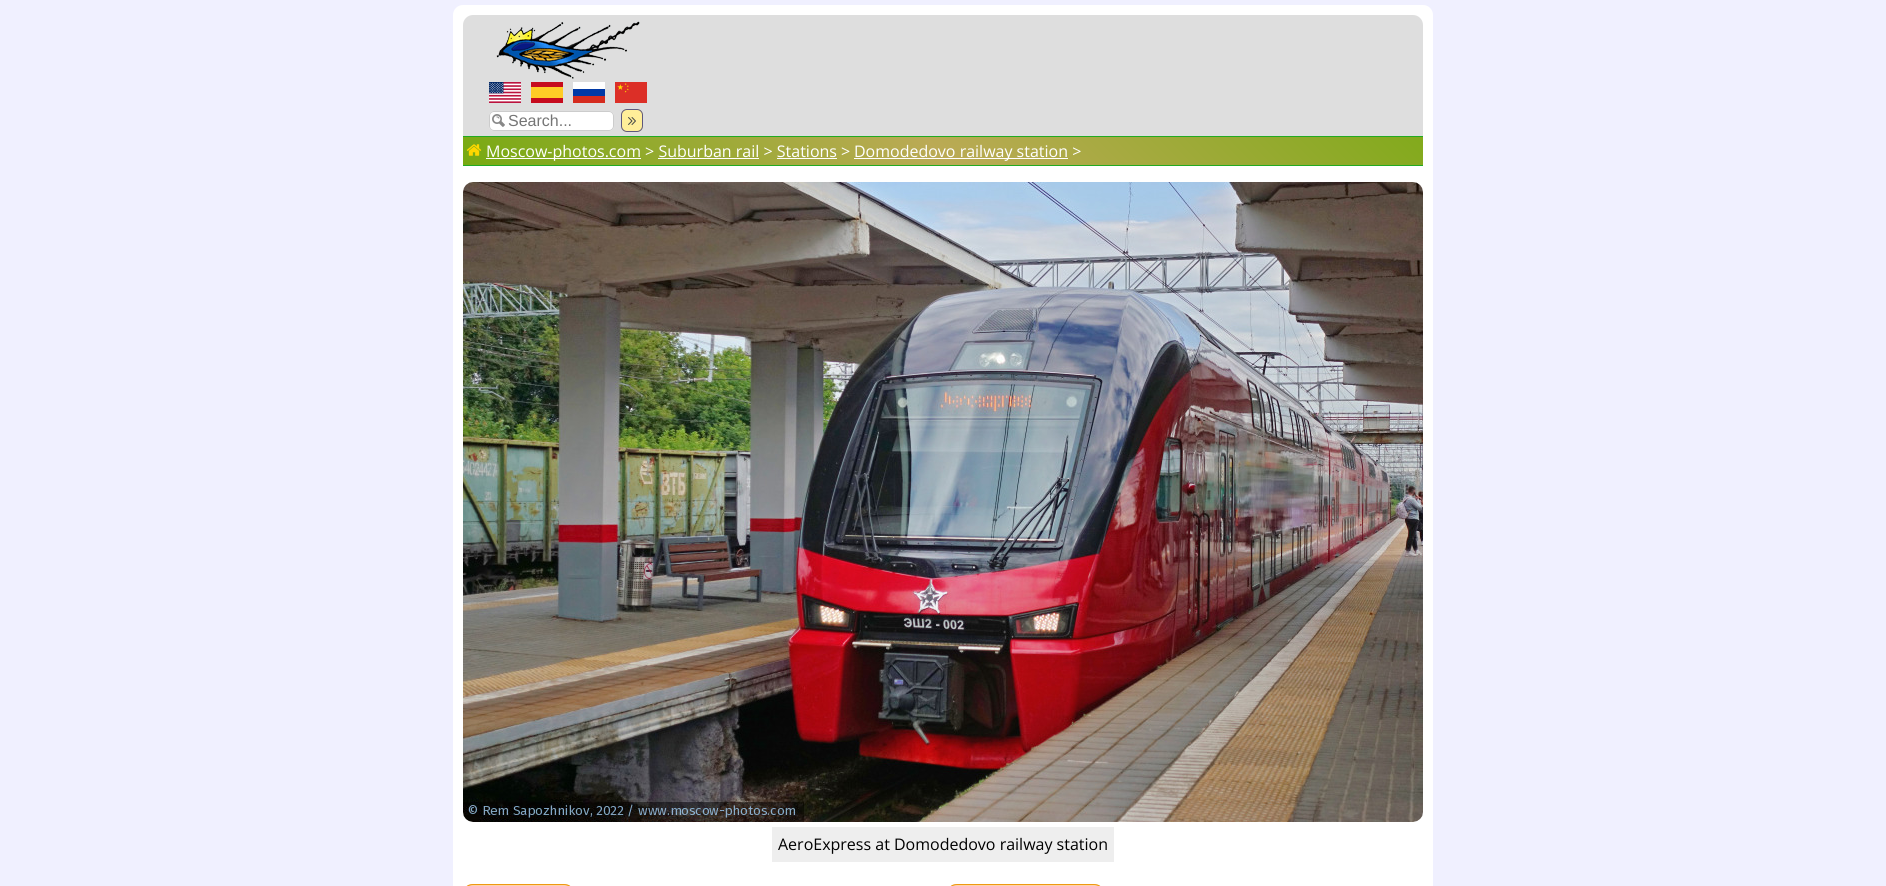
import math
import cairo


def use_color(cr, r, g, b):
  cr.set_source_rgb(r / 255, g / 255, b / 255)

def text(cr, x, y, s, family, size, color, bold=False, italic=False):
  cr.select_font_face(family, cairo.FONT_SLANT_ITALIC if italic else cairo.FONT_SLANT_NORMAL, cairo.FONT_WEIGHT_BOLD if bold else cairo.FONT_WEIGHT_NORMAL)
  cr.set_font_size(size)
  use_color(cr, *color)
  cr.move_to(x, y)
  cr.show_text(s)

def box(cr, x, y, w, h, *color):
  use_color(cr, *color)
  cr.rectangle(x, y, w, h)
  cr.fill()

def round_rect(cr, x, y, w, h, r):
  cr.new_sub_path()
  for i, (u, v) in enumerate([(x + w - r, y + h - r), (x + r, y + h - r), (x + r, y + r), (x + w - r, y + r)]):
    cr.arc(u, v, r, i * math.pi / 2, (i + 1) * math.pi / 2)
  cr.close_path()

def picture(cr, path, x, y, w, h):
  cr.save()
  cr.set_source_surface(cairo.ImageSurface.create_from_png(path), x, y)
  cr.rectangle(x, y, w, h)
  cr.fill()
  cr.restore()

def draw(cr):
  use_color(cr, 240, 240, 255)
  cr.paint()
  use_color(cr, 255, 255, 255)
  round_rect(cr, 453, 5, 980, 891, 10)
  cr.fill()
  use_color(cr, 222, 222, 222)
  cr.new_path()
  cr.move_to(473, 15)
  cr.line_to(1413, 15)
  cr.curve_to(1418.5, 15, 1423, 19.5, 1423, 25)
  cr.line_to(1423, 136)
  cr.line_to(463, 136)
  cr.line_to(463, 25)
  cr.curve_to(463, 19.5, 467.5, 15, 473, 15)
  cr.close_path()
  cr.fill()
  picture(cr, "img_01.png", 496, 21, 144, 58)
  picture(cr, "img_02.png", 489, 82, 32, 21)
  box(cr, 531, 82, 32, 21, 198, 11, 30)
  box(cr, 531, 87, 32, 11, 255, 204, 38)
  box(cr, 573, 82, 32, 7, 255, 255, 255)
  box(cr, 573, 96, 32, 7, 213, 43, 30)
  box(cr, 573, 89, 32, 7, 0, 57, 166)
  picture(cr, "img_03.png", 615, 82, 32, 21)
  use_color(cr, 255, 255, 255)
  round_rect(cr, 489, 111, 125, 20, 5)
  cr.fill()
  picture(cr, "img_04.png", 492, 114, 13, 13)
  round_rect(cr, 489.5, 111.5, 124, 19, 4.5)
  use_color(cr, 204, 204, 204)
  cr.set_line_width(1)
  cr.stroke()
  use_color(cr, 255, 238, 153)
  round_rect(cr, 621, 109, 22, 23, 6)
  cr.fill()
  picture(cr, "img_05.png", 628, 117, 8, 8)
  round_rect(cr, 621.5, 109.5, 21, 22, 5.5)
  use_color(cr, 94, 88, 125)
  cr.stroke()
  gradient = cairo.LinearGradient(696, 398, 1239, -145)
  gradient.add_color_stop_rgba(0, 0.467, 0.667, 0.067, 1)
  gradient.add_color_stop_rgba(0.45, 0.733, 0.667, 0.333, 1)
  gradient.add_color_stop_rgba(1, 0.467, 0.667, 0.067, 1)
  cr.set_source(gradient)
  cr.rectangle(463, 137, 960, 28)
  cr.fill()
  box(cr, 463, 136, 960, 1, 34, 170, 34)
  box(cr, 463, 165, 960, 1, 34, 170, 34)
  picture(cr, "img_06.png", 466, 144, 16, 12)
  box(cr, 486, 158, 155, 1, 255, 255, 255)
  box(cr, 854, 158, 214, 1, 255, 255, 255)
  box(cr, 658, 158, 101, 1, 255, 255, 255)
  box(cr, 777, 158, 60, 1, 255, 255, 255)
  picture(cr, "img_07.png", 463, 182, 960, 640)
  box(cr, 772, 827, 342, 35, 238, 238, 238)
  use_color(cr, 255, 210, 170)
  cr.new_path()
  cr.move_to(473, 884)
  cr.line_to(564, 884)
  cr.curve_to(569.5, 884, 574, 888.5, 574, 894)
  cr.line_to(574, 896)
  cr.line_to(463, 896)
  cr.line_to(463, 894)
  cr.curve_to(463, 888.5, 467.5, 884, 473, 884)
  cr.close_path()
  cr.fill()
  use_color(cr, 238, 153, 17)
  cr.set_fill_rule(cairo.FILL_RULE_EVEN_ODD)
  cr.new_path()
  cr.move_to(473, 884)
  cr.line_to(564, 884)
  cr.curve_to(570, 884, 574, 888, 574, 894)
  cr.line_to(574, 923)
  cr.line_to(463, 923)
  cr.line_to(463, 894)
  cr.curve_to(463, 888, 467, 884, 473, 884)
  cr.close_path()
  cr.move_to(473, 885)
  cr.line_to(564, 885)
  cr.curve_to(569, 885, 573, 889, 573, 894)
  cr.line_to(573, 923)
  cr.line_to(464, 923)
  cr.line_to(464, 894)
  cr.curve_to(464, 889, 468, 885, 473, 885)
  cr.close_path()
  cr.fill()
  use_color(cr, 255, 210, 170)
  cr.new_path()
  cr.move_to(957, 884)
  cr.line_to(1094, 884)
  cr.curve_to(1099.5, 884, 1104, 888.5, 1104, 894)
  cr.line_to(1104, 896)
  cr.line_to(947, 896)
  cr.line_to(947, 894)
  cr.curve_to(947, 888.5, 951.5, 884, 957, 884)
  cr.close_path()
  cr.fill()
  use_color(cr, 238, 153, 17)
  cr.new_path()
  cr.move_to(957, 884)
  cr.line_to(1094, 884)
  cr.curve_to(1100, 884, 1104, 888, 1104, 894)
  cr.line_to(1104, 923)
  cr.line_to(947, 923)
  cr.line_to(947, 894)
  cr.curve_to(947, 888, 951, 884, 957, 884)
  cr.close_path()
  cr.move_to(957, 885)
  cr.line_to(1094, 885)
  cr.curve_to(1099, 885, 1103, 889, 1103, 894)
  cr.line_to(1103, 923)
  cr.line_to(948, 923)
  cr.line_to(948, 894)
  cr.curve_to(948, 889, 952, 885, 957, 885)
  cr.close_path()
  cr.fill()
  text(cr, 508, 126, "Search...", "Liberation Sans", 16, (117, 117, 117))
  text(cr, 486, 157, "Moscow-photos.com > Suburban rail > Stations >", "Open Sans", 16, (255, 255, 255))
  text(cr, 854, 157, "Domodedovo railway station >", "Open Sans", 16, (255, 255, 255))
  text(cr, 778, 850, "AeroExpress at Domodedovo railway station", "Open Sans", 16, (0, 0, 0))


surface = cairo.ImageSurface(cairo.FORMAT_RGB24, 1886, 886)
cr = cairo.Context(surface)
options = cairo.FontOptions()
options.set_hint_metrics(cairo.HINT_METRICS_OFF)
options.set_hint_style(cairo.HINT_STYLE_NONE)
cr.set_font_options(options)
cr.set_miter_limit(4)
draw(cr)
surface.write_to_png("out.png")
